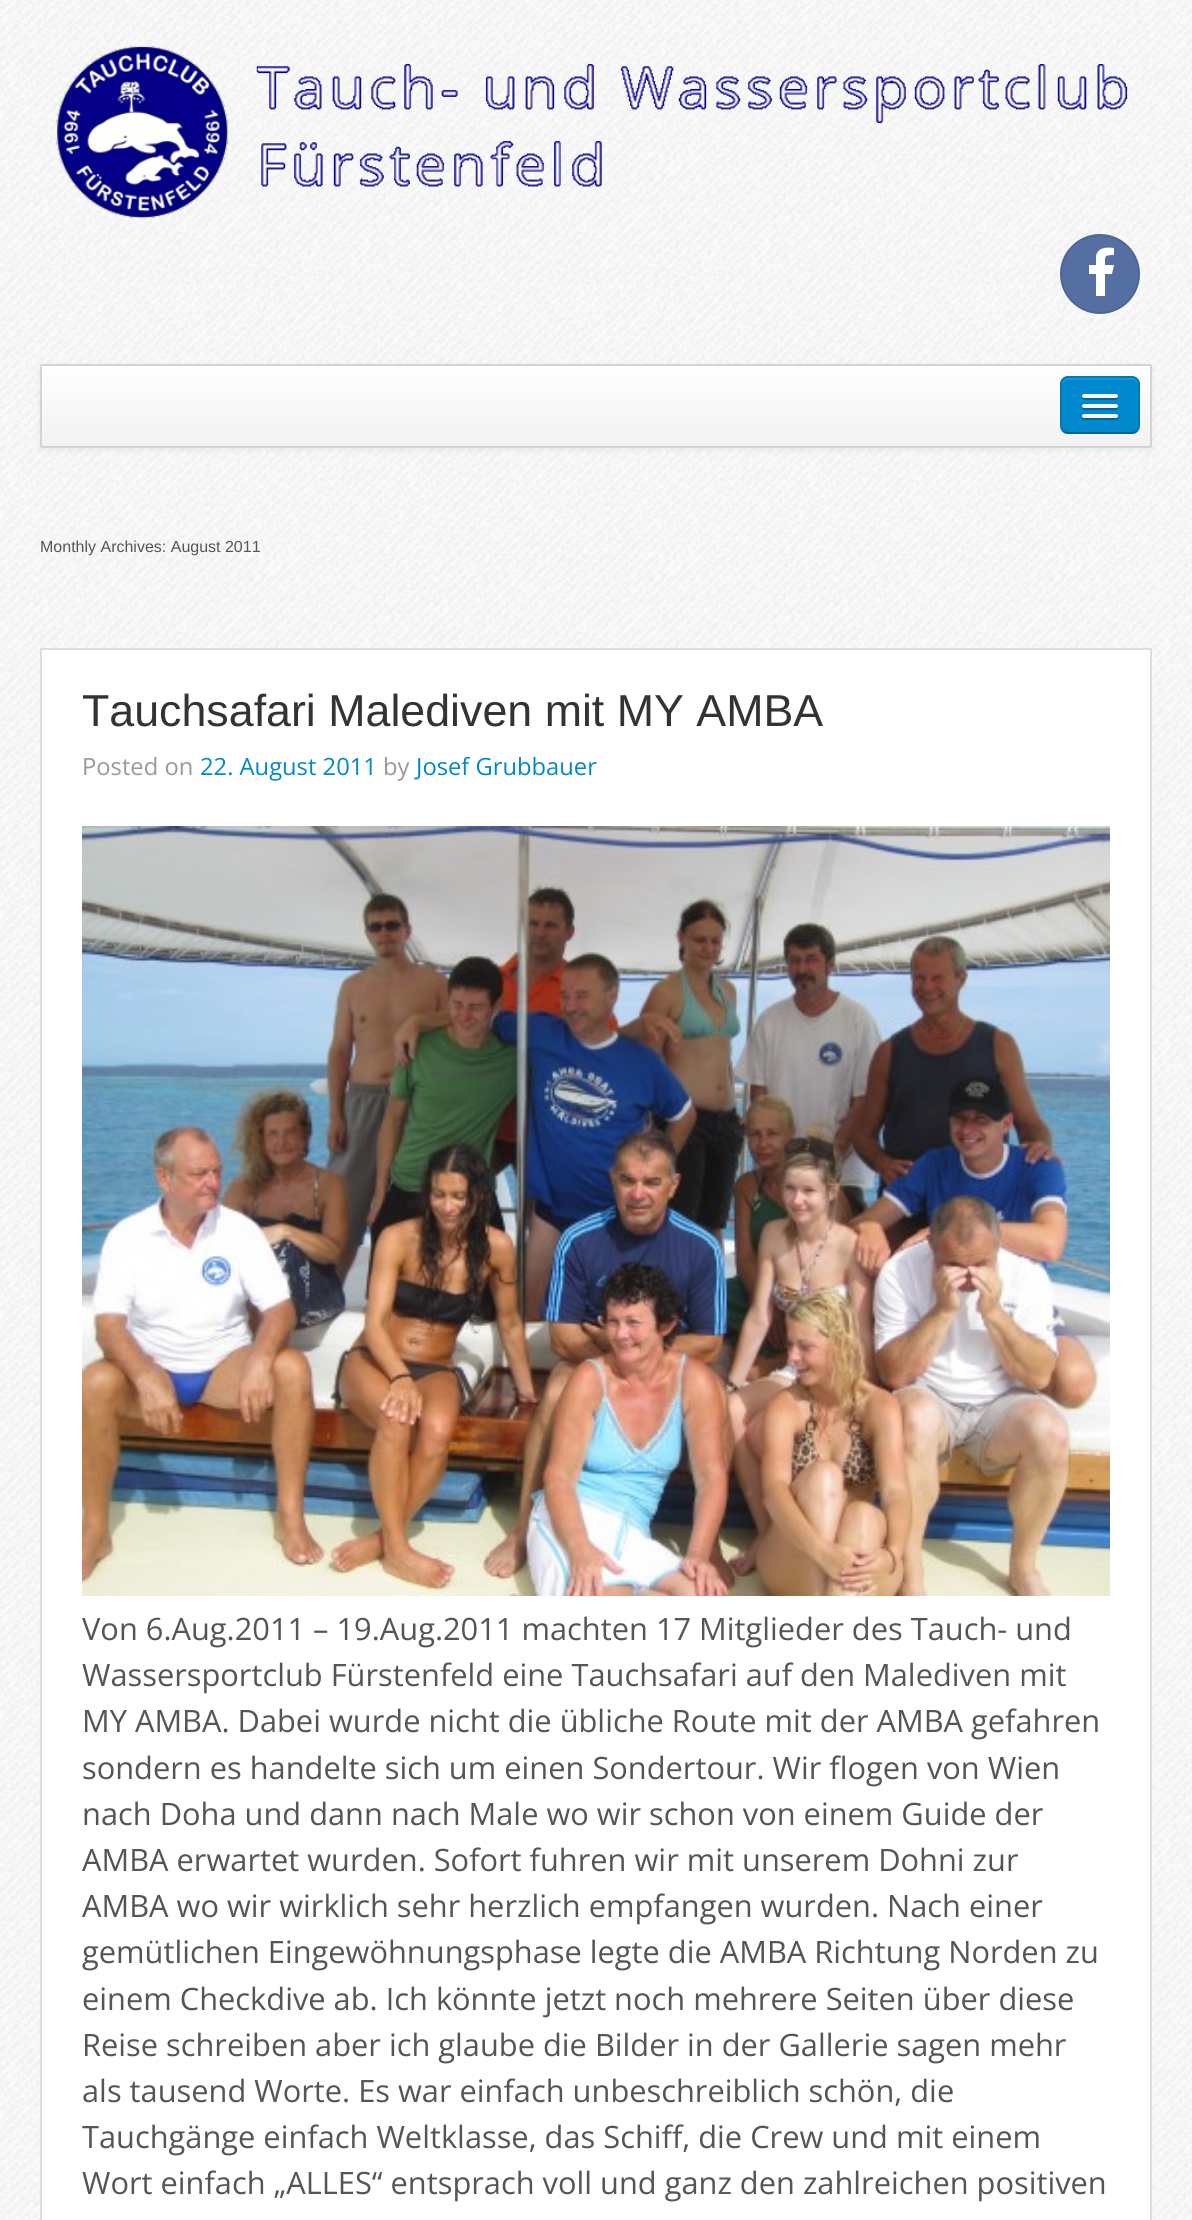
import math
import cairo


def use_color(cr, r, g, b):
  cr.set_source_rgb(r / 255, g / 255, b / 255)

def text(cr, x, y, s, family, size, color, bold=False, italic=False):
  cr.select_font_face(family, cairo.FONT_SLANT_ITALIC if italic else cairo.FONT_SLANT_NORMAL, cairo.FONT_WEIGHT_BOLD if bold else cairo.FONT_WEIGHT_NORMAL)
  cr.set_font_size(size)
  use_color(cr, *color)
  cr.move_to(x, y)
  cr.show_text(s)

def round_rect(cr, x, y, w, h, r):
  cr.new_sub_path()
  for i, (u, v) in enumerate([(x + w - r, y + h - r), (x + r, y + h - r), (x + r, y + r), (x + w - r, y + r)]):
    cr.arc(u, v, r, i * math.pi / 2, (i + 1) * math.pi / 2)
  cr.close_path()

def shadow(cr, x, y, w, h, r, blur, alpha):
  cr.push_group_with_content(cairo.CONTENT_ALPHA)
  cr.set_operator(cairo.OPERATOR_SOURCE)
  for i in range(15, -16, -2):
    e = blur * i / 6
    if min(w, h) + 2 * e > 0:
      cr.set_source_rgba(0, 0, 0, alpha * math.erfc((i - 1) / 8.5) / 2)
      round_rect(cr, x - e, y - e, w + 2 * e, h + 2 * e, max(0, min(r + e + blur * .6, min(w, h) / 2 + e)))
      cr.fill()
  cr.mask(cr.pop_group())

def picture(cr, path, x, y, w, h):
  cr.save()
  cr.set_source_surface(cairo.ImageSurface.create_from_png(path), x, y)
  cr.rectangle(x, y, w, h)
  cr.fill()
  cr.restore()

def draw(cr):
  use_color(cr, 255, 255, 255)
  cr.paint()
  picture(cr, "img_01.png", 0, 0, 1192, 2220)
  picture(cr, "img_02.png", 55, 45, 1073, 174)
  use_color(cr, 85, 111, 163)
  cr.arc(1100, 274, 39, 0, 2 * math.pi)
  cr.fill_preserve()
  use_color(cr, 77, 101, 149)
  cr.stroke()
  use_color(cr, 255, 255, 255)
  cr.new_path()
  cr.move_to(1114, 248)
  cr.line_to(1114, 255)
  cr.curve_to(1104, 255, 1105, 256, 1105, 265)
  cr.line_to(1114, 265)
  cr.line_to(1112, 274)
  cr.line_to(1105, 274)
  cr.line_to(1105, 296)
  cr.line_to(1096, 296)
  cr.line_to(1096, 274)
  cr.line_to(1089, 274)
  cr.line_to(1089, 265)
  cr.line_to(1096, 265)
  cr.line_to(1096, 256)
  cr.curve_to(1098, 247, 1107, 247, 1114, 248)
  cr.close_path()
  cr.fill()
  use_color(cr, 0, 0, 0)
  shadow(cr, 40, 366, 1112, 84, 2, 4, 0.07)
  gradient = cairo.LinearGradient(596, 366, 596, 446)
  gradient.add_color_stop_rgba(0, 1, 1, 1, 1)
  gradient.add_color_stop_rgba(1, 0.949, 0.949, 0.949, 1)
  cr.set_source(gradient)
  cr.rectangle(42, 366, 1108, 80)
  cr.fill()
  round_rect(cr, 41, 365, 1110, 82, 1)
  use_color(cr, 212, 212, 212)
  cr.stroke()
  use_color(cr, 0, 136, 204)
  round_rect(cr, 1060, 376, 80, 58, 8)
  cr.fill()
  use_color(cr, 26, 148, 209)
  cr.new_path()
  cr.move_to(1068, 380)
  cr.line_to(1132, 380)
  cr.curve_to(1135, 380, 1138, 383, 1138, 386)
  cr.curve_to(1138, 376, 1130, 378, 1121, 378)
  cr.line_to(1079, 378)
  cr.curve_to(1070, 378, 1062, 376, 1062, 386)
  cr.curve_to(1062, 383, 1065, 380, 1068, 380)
  cr.close_path()
  cr.fill()
  cr.new_path()
  cr.move_to(1137, 431)
  cr.curve_to(1135.5, 432.5, 1134, 433, 1132, 433)
  cr.line_to(1068, 433)
  cr.curve_to(1066, 433, 1064.5, 432.5, 1063, 431)
  cr.set_source_rgba(0, 0, 0, 0.25)
  cr.stroke()
  cr.new_path()
  cr.move_to(1063, 431)
  cr.curve_to(1061.5, 429.5, 1061, 428, 1061, 426)
  cr.line_to(1061, 384)
  cr.curve_to(1061, 382, 1061.5, 380.5, 1063, 379)
  cr.curve_to(1064.5, 377.5, 1066, 377, 1068, 377)
  cr.line_to(1132, 377)
  cr.curve_to(1134, 377, 1135.5, 377.5, 1137, 379)
  cr.curve_to(1138.5, 380.5, 1139, 382, 1139, 384)
  cr.line_to(1139, 426)
  cr.curve_to(1139, 428, 1138.5, 429.5, 1137, 431)
  cr.set_source_rgba(0, 0, 0, 0.1)
  cr.stroke()
  use_color(cr, 0, 102, 153)
  cr.new_path()
  cr.move_to(1082.5, 397)
  cr.curve_to(1080, 401, 1089, 400, 1089.5, 400)
  cr.line_to(1110.5, 400)
  cr.curve_to(1111, 400, 1120, 401, 1117.5, 397)
  cr.curve_to(1117.5, 397.5, 1116.5, 398, 1116, 398)
  cr.line_to(1084, 398)
  cr.curve_to(1083.5, 398, 1082.5, 397.5, 1082.5, 397)
  cr.close_path()
  cr.fill()
  use_color(cr, 245, 245, 245)
  round_rect(cr, 1082, 394, 36, 4, 2)
  cr.fill()
  use_color(cr, 0, 102, 153)
  cr.new_path()
  cr.move_to(1082.5, 407)
  cr.curve_to(1080, 411, 1089, 410, 1089.5, 410)
  cr.line_to(1110.5, 410)
  cr.curve_to(1111, 410, 1120, 411, 1117.5, 407)
  cr.curve_to(1117.5, 407.5, 1116.5, 408, 1116, 408)
  cr.line_to(1084, 408)
  cr.curve_to(1083.5, 408, 1082.5, 407.5, 1082.5, 407)
  cr.close_path()
  cr.fill()
  use_color(cr, 245, 245, 245)
  round_rect(cr, 1082, 404, 36, 4, 2)
  cr.fill()
  use_color(cr, 0, 102, 153)
  cr.new_path()
  cr.move_to(1082.5, 417)
  cr.curve_to(1080, 421, 1089, 420, 1089.5, 420)
  cr.line_to(1110.5, 420)
  cr.curve_to(1111, 420, 1120, 421, 1117.5, 417)
  cr.curve_to(1117.5, 417.5, 1116.5, 418, 1116, 418)
  cr.line_to(1084, 418)
  cr.curve_to(1083.5, 418, 1082.5, 417.5, 1082.5, 417)
  cr.close_path()
  cr.fill()
  use_color(cr, 245, 245, 245)
  round_rect(cr, 1082, 414, 36, 4, 2)
  cr.fill()
  use_color(cr, 255, 255, 255)
  cr.rectangle(41, 649, 1110, 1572)
  cr.fill_preserve()
  use_color(cr, 221, 221, 221)
  cr.stroke()
  picture(cr, "img_03.png", 82, 826, 1028, 770)
  text(cr, 40, 552, "Monthly Archives: August 2011", "Liberation Sans", 16, (85, 85, 85))
  text(cr, 82, 726, "Tauchsafari Malediven mit MY AMBA", "Liberation Sans", 44.75, (51, 51, 51))
  text(cr, 82, 775, "Posted on", "Open Sans", 23.75, (153, 153, 153))
  text(cr, 200, 775, "22. August 2011", "Open Sans", 23.75, (0, 136, 204))
  text(cr, 383, 775, "by", "Open Sans", 23.75, (153, 153, 153))
  text(cr, 416, 775, "Josef Grubbauer", "Open Sans", 23.75, (0, 136, 204))
  text(cr, 82, 1640, "Von 6.Aug.2011 – 19.Aug.2011 machten 17 Mitglieder des Tauch- und", "Open Sans", 30.8, (85, 85, 85))
  text(cr, 82, 1686, "Wassersportclub Fürstenfeld eine Tauchsafari auf den Malediven mit", "Open Sans", 30.8, (85, 85, 85))
  text(cr, 82, 1732, "MY AMBA. Dabei wurde nicht die übliche Route mit der AMBA gefahren", "Open Sans", 30.8, (85, 85, 85))
  text(cr, 82, 1779, "sondern es handelte sich um einen Sondertour. Wir flogen von Wien", "Open Sans", 30.8, (85, 85, 85))
  text(cr, 82, 1825, "nach Doha und dann nach Male wo wir schon von einem Guide der", "Open Sans", 30.8, (85, 85, 85))
  text(cr, 82, 1871, "AMBA erwartet wurden. Sofort fuhren wir mit unserem Dohni zur", "Open Sans", 30.8, (85, 85, 85))
  text(cr, 82, 1917, "AMBA wo wir wirklich sehr herzlich empfangen wurden. Nach einer", "Open Sans", 30.8, (85, 85, 85))
  text(cr, 82, 1963, "gemütlichen Eingewöhnungsphase legte die AMBA Richtung Norden zu", "Open Sans", 30.8, (85, 85, 85))
  text(cr, 82, 2010, "einem Checkdive ab. Ich könnte jetzt noch mehrere Seiten über diese", "Open Sans", 30.8, (85, 85, 85))
  text(cr, 82, 2056, "Reise schreiben aber ich glaube die Bilder in der Gallerie sagen mehr", "Open Sans", 30.8, (85, 85, 85))
  text(cr, 82, 2102, "als tausend Worte. Es war einfach unbeschreiblich schön, die", "Open Sans", 30.8, (85, 85, 85))
  text(cr, 82, 2148, "Tauchgänge einfach Weltklasse, das Schiff, die Crew und mit einem", "Open Sans", 30.8, (85, 85, 85))
  text(cr, 82, 2194, "Wort einfach „ALLES“ entsprach voll und ganz den zahlreichen positiven", "Open Sans", 30.8, (85, 85, 85))


surface = cairo.ImageSurface(cairo.FORMAT_RGB24, 1192, 2220)
cr = cairo.Context(surface)
options = cairo.FontOptions()
options.set_hint_metrics(cairo.HINT_METRICS_OFF)
options.set_hint_style(cairo.HINT_STYLE_NONE)
cr.set_font_options(options)
cr.set_miter_limit(4)
draw(cr)
surface.write_to_png("out.png")
